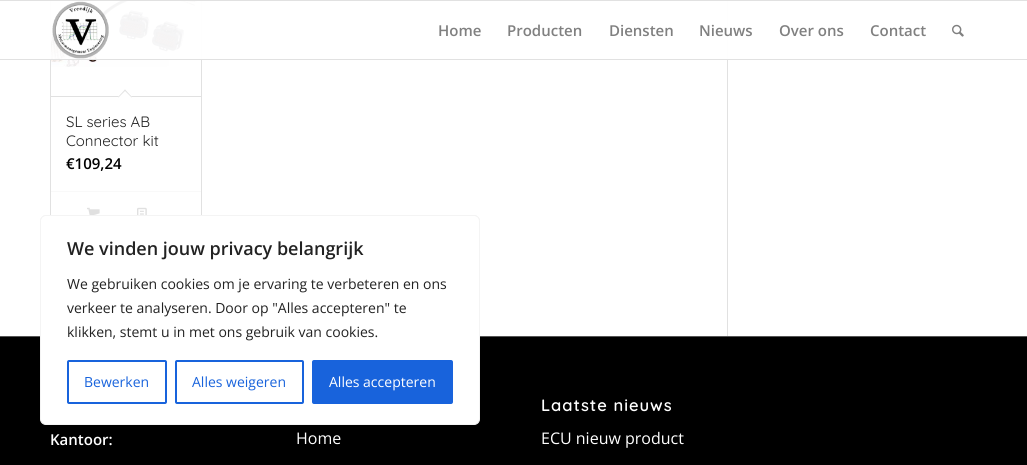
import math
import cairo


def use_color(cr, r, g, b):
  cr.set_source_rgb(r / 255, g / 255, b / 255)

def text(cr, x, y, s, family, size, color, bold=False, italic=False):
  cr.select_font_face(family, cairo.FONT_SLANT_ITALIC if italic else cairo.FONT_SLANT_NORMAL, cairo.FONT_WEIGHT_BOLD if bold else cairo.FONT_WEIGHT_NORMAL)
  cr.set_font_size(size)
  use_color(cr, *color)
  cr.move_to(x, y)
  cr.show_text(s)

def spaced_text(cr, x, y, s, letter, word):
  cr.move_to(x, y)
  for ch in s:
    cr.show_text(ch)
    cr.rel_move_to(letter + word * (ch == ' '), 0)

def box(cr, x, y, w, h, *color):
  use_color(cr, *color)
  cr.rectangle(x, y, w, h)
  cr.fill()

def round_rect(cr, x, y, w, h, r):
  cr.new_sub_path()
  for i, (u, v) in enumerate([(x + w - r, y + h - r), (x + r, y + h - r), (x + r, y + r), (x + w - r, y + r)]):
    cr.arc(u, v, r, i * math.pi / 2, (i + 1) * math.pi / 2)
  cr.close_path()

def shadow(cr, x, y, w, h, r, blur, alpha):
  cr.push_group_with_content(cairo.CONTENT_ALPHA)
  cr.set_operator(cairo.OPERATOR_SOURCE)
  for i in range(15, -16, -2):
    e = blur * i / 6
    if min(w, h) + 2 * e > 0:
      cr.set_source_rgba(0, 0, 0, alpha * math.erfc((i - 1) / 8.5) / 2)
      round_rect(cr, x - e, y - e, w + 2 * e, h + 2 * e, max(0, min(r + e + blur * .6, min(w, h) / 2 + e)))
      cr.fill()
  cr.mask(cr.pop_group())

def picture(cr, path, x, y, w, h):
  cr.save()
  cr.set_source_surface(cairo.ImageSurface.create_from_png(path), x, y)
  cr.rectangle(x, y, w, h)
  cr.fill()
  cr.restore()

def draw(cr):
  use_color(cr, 255, 255, 255)
  cr.paint()
  box(cr, 727, 0, 1, 336, 225, 225, 225)
  cr.rectangle(50.5, -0.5, 151, 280)
  cr.set_line_width(1)
  cr.stroke()
  picture(cr, "img_03.png", 51, 1, 146, 66)
  cr.set_source_rgba(1, 1, 1, 0.95)
  cr.rectangle(50, 1, 678, 58)
  cr.fill()
  box(cr, 0, 0, 1027, 1, 225, 225, 225)
  box(cr, 0, 59, 1027, 1, 225, 225, 225)
  picture(cr, "img_01.png", 52, 1, 57, 58)
  picture(cr, "img_02.png", 952, 24, 12, 13)
  box(cr, 51, 96, 150, 1, 225, 225, 225)
  use_color(cr, 255, 255, 255)
  cr.new_path()
  cr.move_to(125, 89.5)
  cr.line_to(132, 97)
  cr.line_to(125, 104)
  cr.line_to(118, 97)
  cr.close_path()
  cr.fill()
  use_color(cr, 225, 225, 225)
  cr.new_path()
  cr.move_to(125, 89.5)
  cr.line_to(132, 97)
  cr.line_to(131.5, 97.5)
  cr.line_to(124.5, 90.5)
  cr.close_path()
  cr.fill()
  cr.new_path()
  cr.move_to(125, 89.5)
  cr.line_to(125.5, 90.5)
  cr.line_to(118.5, 97.5)
  cr.line_to(118, 97)
  cr.close_path()
  cr.fill()
  box(cr, 51, 191, 150, 1, 249, 249, 249)
  picture(cr, "img_04.png", 87, 207, 13, 8)
  picture(cr, "img_05.png", 137, 207, 10, 8)
  box(cr, 0, 337, 1027, 128, 0, 0, 0)
  box(cr, 0, 336, 1027, 1, 85, 85, 85)
  cr.save()
  round_rect(cr, 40, 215, 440, 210, 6)
  cr.clip()
  use_color(cr, 172, 171, 171)
  shadow(cr, 40, 214, 440, 210, 6, 5, 0.3)
  cr.restore()
  use_color(cr, 255, 255, 255)
  round_rect(cr, 40.5, 215.5, 439, 209, 5.5)
  cr.fill_preserve()
  use_color(cr, 244, 244, 244)
  cr.stroke()
  round_rect(cr, 68, 361, 98, 42, 1)
  use_color(cr, 24, 99, 220)
  cr.set_line_width(2)
  cr.stroke()
  round_rect(cr, 176, 361, 127, 42, 1)
  cr.stroke()
  round_rect(cr, 313, 361, 139, 42, 1)
  cr.fill_preserve()
  cr.stroke()
  text(cr, 438, 36, "Home", "Open Sans SemiBold", 15, (128, 128, 128))
  text(cr, 507, 36, "Producten", "Open Sans SemiBold", 15, (128, 128, 128))
  text(cr, 609, 36, "Diensten", "Open Sans SemiBold", 15, (128, 128, 128))
  text(cr, 699, 36, "Nieuws", "Open Sans SemiBold", 15, (128, 128, 128))
  text(cr, 779, 36, "Over ons", "Open Sans SemiBold", 15, (128, 128, 128))
  text(cr, 870, 36, "Contact", "Open Sans SemiBold", 15, (128, 128, 128))
  text(cr, 66, 127, "SL series AB", "Quicksand", 15, (34, 34, 34))
  text(cr, 66, 146, "Connector kit", "Quicksand", 15, (34, 34, 34))
  text(cr, 66, 169, "€109,24", "Open Sans SemiBold", 15, (0, 0, 0))
  text(cr, 50, 445, "Kantoor:", "Open Sans SemiBold", 15, (255, 255, 255))
  text(cr, 296, 444, "Home", "Open Sans", 16, (255, 255, 255))
  cr.select_font_face("Quicksand SemiBold")
  cr.set_font_size(16.5)
  spaced_text(cr, 541, 411, "Laatste nieuws", 1, 0)
  text(cr, 541, 444, "ECU nieuw product", "Open Sans", 16, (255, 255, 255))
  text(cr, 67, 255, "We vinden jouw privacy belangrijk", "Open Sans SemiBold", 18, (34, 34, 34))
  text(cr, 67, 289, "We gebruiken cookies om je ervaring te verbeteren en ons", "Open Sans", 14, (34, 34, 34))
  text(cr, 67, 313, "verkeer te analyseren. Door op \"Alles accepteren\" te", "Open Sans", 14, (34, 34, 34))
  text(cr, 67, 337, "klikken, stemt u in met ons gebruik van cookies.", "Open Sans", 14, (34, 34, 34))
  text(cr, 84, 387, "Bewerken", "Open Sans", 14, (24, 99, 220))
  text(cr, 192, 387, "Alles weigeren", "Open Sans", 14, (24, 99, 220))
  text(cr, 329, 387, "Alles accepteren", "Open Sans", 14, (255, 255, 255))


surface = cairo.ImageSurface(cairo.FORMAT_RGB24, 1027, 465)
cr = cairo.Context(surface)
options = cairo.FontOptions()
options.set_hint_metrics(cairo.HINT_METRICS_OFF)
options.set_hint_style(cairo.HINT_STYLE_NONE)
cr.set_font_options(options)
cr.set_miter_limit(4)
draw(cr)
surface.write_to_png("out.png")
